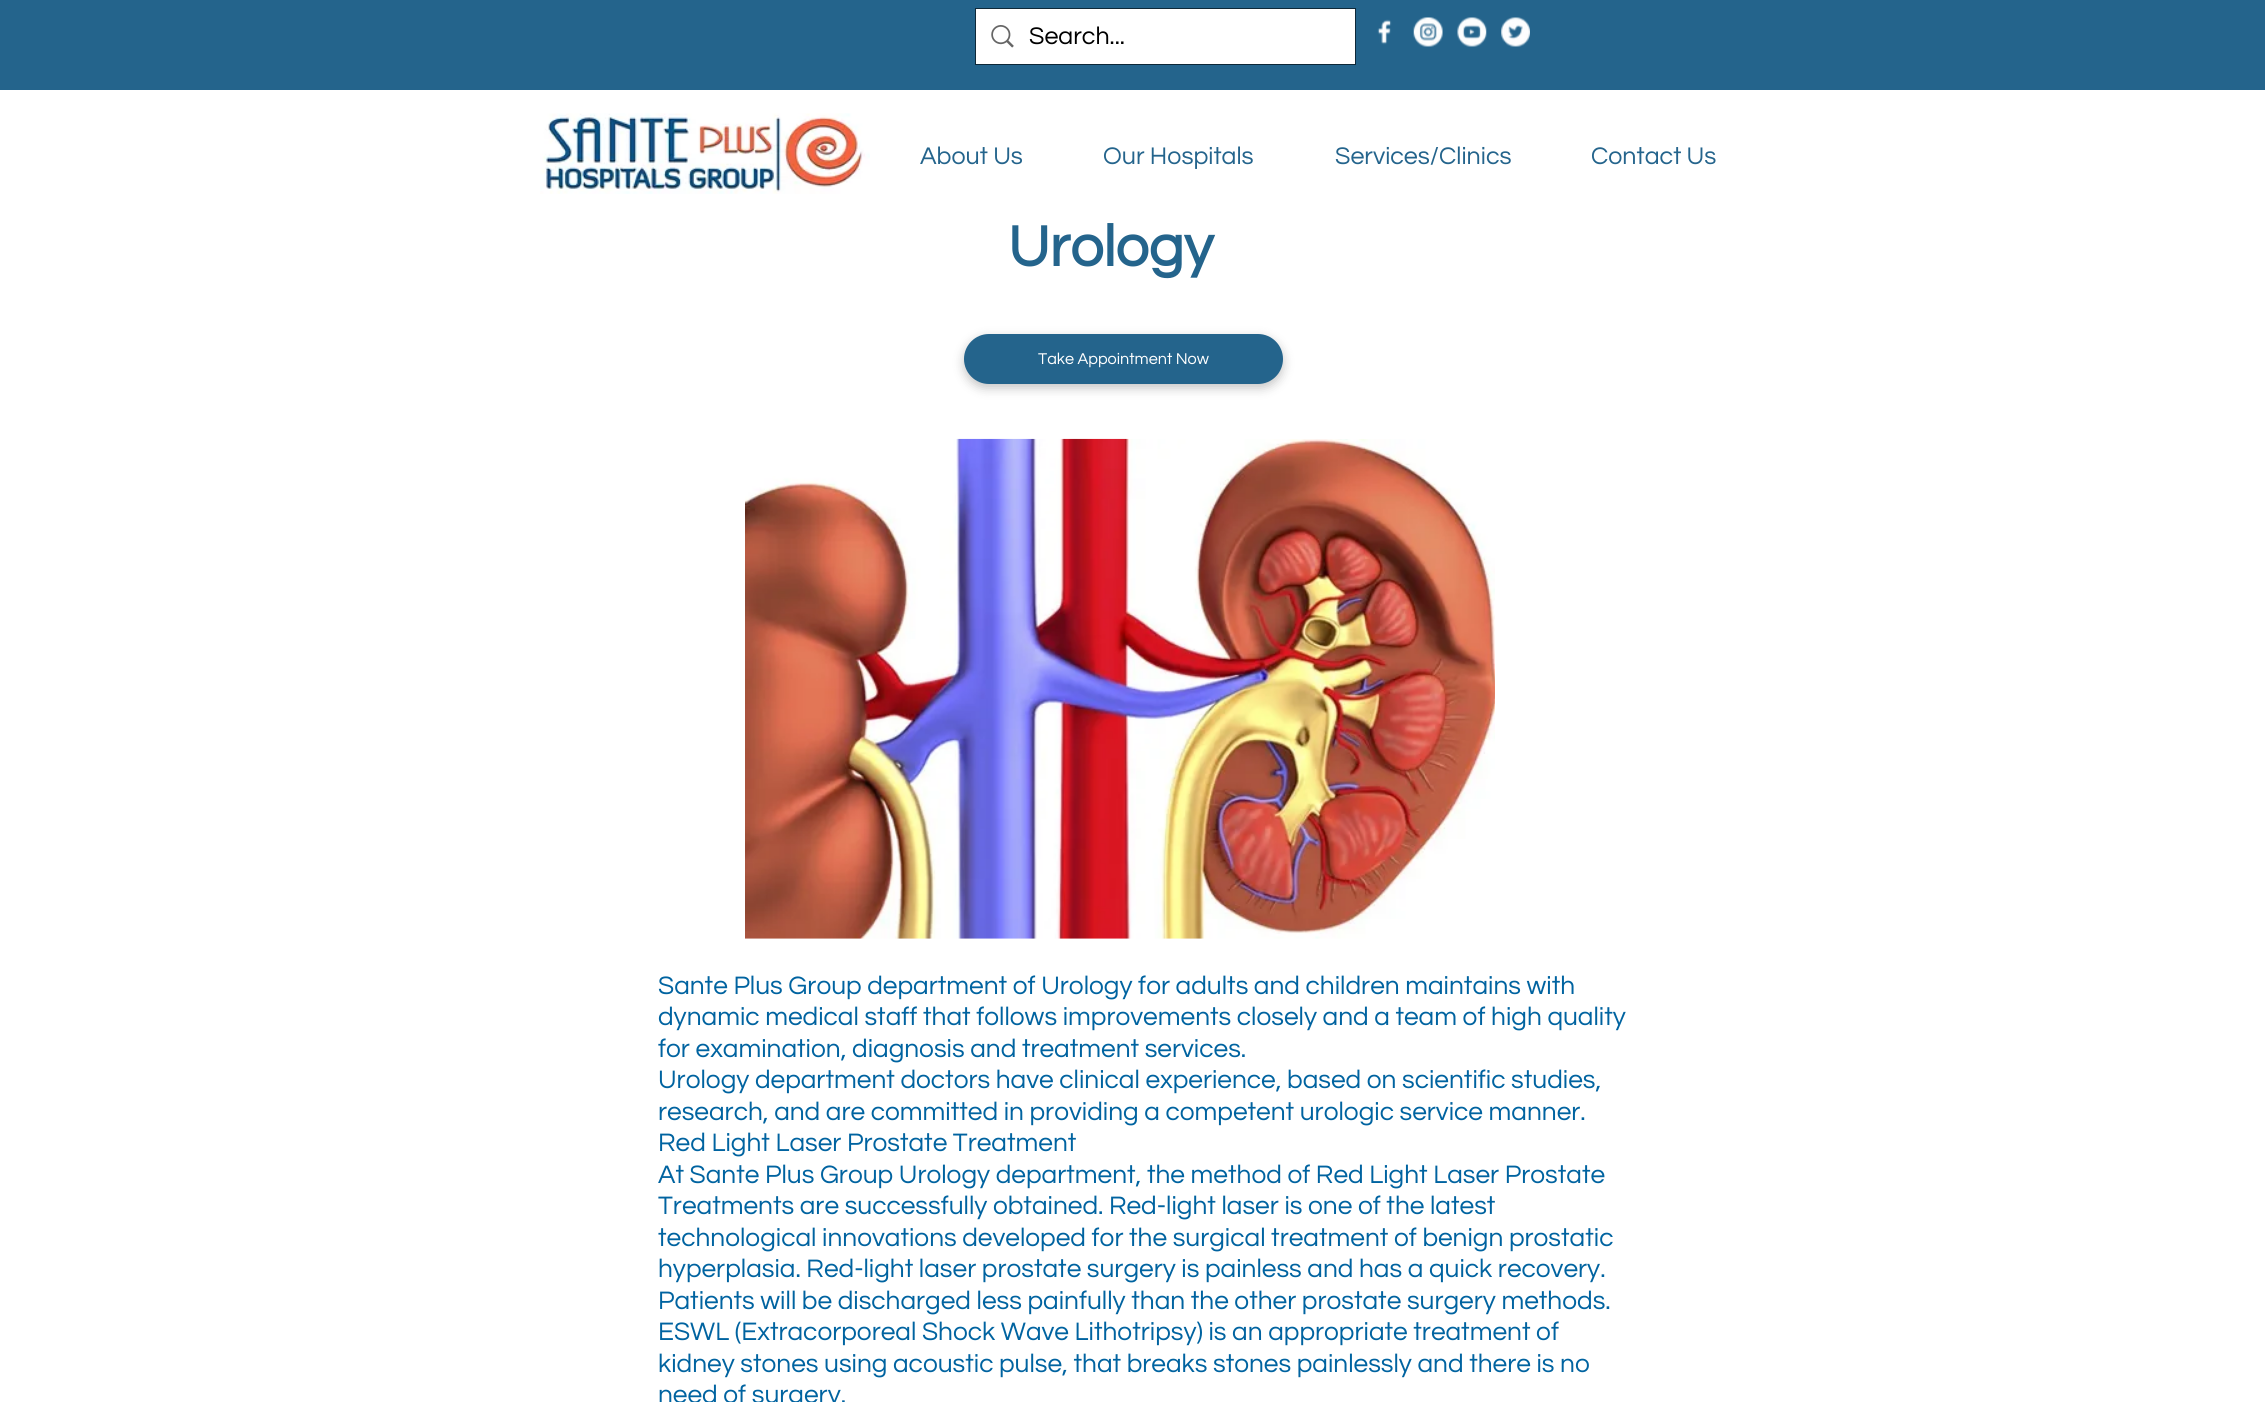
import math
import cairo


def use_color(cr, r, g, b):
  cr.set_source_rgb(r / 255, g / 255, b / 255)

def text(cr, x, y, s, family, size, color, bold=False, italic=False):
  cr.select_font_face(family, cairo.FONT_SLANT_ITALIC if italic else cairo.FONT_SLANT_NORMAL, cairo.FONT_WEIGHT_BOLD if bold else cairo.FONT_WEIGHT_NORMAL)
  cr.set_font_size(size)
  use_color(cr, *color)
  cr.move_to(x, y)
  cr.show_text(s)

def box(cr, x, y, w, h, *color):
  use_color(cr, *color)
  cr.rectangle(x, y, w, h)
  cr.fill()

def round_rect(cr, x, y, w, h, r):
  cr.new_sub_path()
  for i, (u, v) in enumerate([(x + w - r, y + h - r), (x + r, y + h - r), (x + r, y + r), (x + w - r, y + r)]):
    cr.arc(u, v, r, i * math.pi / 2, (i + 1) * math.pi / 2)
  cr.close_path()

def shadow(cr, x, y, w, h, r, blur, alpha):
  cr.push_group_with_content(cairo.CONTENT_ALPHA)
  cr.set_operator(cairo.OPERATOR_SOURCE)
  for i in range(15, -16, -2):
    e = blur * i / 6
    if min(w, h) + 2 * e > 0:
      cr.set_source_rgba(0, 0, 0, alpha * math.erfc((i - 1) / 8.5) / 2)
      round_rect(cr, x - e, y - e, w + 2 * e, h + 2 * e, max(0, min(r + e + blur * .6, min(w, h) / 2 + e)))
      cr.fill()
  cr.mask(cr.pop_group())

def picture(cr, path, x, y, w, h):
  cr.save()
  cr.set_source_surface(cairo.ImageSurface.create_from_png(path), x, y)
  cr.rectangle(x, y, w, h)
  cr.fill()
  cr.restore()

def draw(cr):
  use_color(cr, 255, 255, 255)
  cr.paint()
  box(cr, 0, 0, 2265, 90, 36, 100, 140)
  cr.rectangle(975.5, 8.5, 380, 56)
  use_color(cr, 14, 40, 56)
  cr.set_line_width(1)
  cr.stroke()
  box(cr, 976, 9, 379, 55, 255, 255, 255)
  picture(cr, "img_01.png", 991, 25, 23, 23)
  picture(cr, "img_02.png", 1377, 19, 15, 26)
  picture(cr, "img_03.png", 1413, 17, 30, 30)
  picture(cr, "img_04.png", 1457, 17, 30, 30)
  picture(cr, "img_05.png", 1501, 17, 29, 30)
  picture(cr, "img_06.png", 540, 113, 330, 81)
  use_color(cr, 0, 0, 0)
  shadow(cr, 964, 338, 319, 50, 25, 5.5, 0.23)
  use_color(cr, 36, 100, 140)
  round_rect(cr, 964, 334, 319, 50, 25)
  cr.fill()
  picture(cr, "img_07.png", 745, 438, 750, 501)
  text(cr, 1029, 44, "Search...", "Questrial", 25, (0, 0, 0))
  text(cr, 920, 164, "About Us", "Questrial", 25, (36, 100, 140))
  text(cr, 1103, 164, "Our Hospitals", "Questrial", 25, (36, 100, 140))
  text(cr, 1335, 164, "Services/Clinics", "Questrial", 25, (36, 100, 140))
  text(cr, 1591, 164, "Contact Us", "Questrial", 25, (36, 100, 140))
  text(cr, 1008, 266, "Urology", "Questrial", 59, (36, 100, 140), bold=True)
  text(cr, 1038, 364, "Take Appointment Now", "Questrial", 16.25, (255, 255, 255))
  text(cr, 658, 994, "Sante Plus Group department of Urology for adults and children maintains with", "Questrial", 26.25, (0, 99, 160))
  text(cr, 658, 1025, "dynamic medical staff that follows improvements closely and a team of high quality", "Questrial", 26.25, (0, 99, 160))
  text(cr, 658, 1057, "for examination, diagnosis and treatment services.", "Questrial", 26.25, (0, 99, 160))
  text(cr, 658, 1088, "Urology department doctors have clinical experience, based on scientific studies,", "Questrial", 26.25, (0, 99, 160))
  text(cr, 658, 1120, "research, and are committed in providing a competent urologic service manner.", "Questrial", 26.25, (0, 99, 160))
  text(cr, 658, 1151, "Red Light Laser Prostate Treatment", "Questrial", 26.25, (0, 99, 160))
  text(cr, 658, 1183, "At Sante Plus Group Urology department, the method of Red Light Laser Prostate", "Questrial", 26.25, (0, 99, 160))
  text(cr, 658, 1214, "Treatments are successfully obtained. Red-light laser is one of the latest", "Questrial", 26.25, (0, 99, 160))
  text(cr, 658, 1246, "technological innovations developed for the surgical treatment of benign prostatic", "Questrial", 26.25, (0, 99, 160))
  text(cr, 658, 1277, "hyperplasia. Red-light laser prostate surgery is painless and has a quick recovery.", "Questrial", 26.25, (0, 99, 160))
  text(cr, 658, 1309, "Patients will be discharged less painfully than the other prostate surgery methods.", "Questrial", 26.25, (0, 99, 160))
  text(cr, 658, 1340, "ESWL (Extracorporeal Shock Wave Lithotripsy) is an appropriate treatment of", "Questrial", 26.25, (0, 99, 160))
  text(cr, 658, 1372, "kidney stones using acoustic pulse, that breaks stones painlessly and there is no", "Questrial", 26.25, (0, 99, 160))
  text(cr, 658, 1403, "need of surgery.", "Questrial", 26.25, (0, 99, 160))


surface = cairo.ImageSurface(cairo.FORMAT_RGB24, 2265, 1402)
cr = cairo.Context(surface)
options = cairo.FontOptions()
options.set_hint_metrics(cairo.HINT_METRICS_OFF)
options.set_hint_style(cairo.HINT_STYLE_NONE)
cr.set_font_options(options)
cr.set_miter_limit(4)
draw(cr)
surface.write_to_png("out.png")
